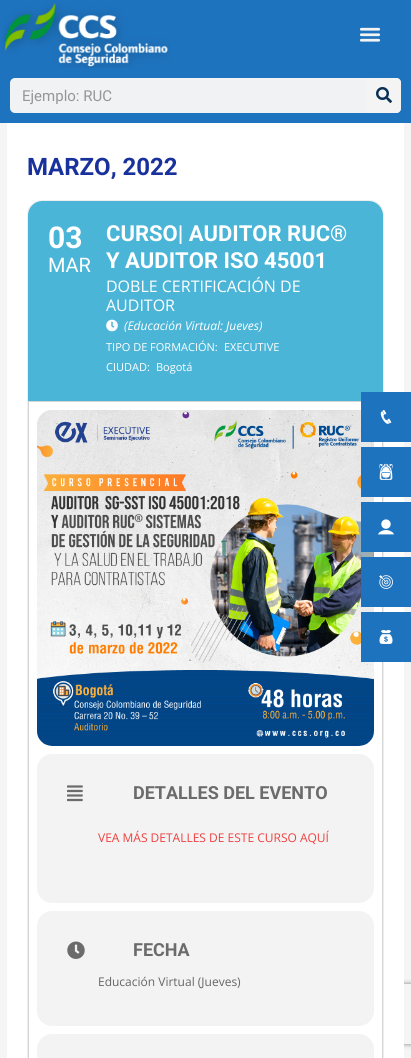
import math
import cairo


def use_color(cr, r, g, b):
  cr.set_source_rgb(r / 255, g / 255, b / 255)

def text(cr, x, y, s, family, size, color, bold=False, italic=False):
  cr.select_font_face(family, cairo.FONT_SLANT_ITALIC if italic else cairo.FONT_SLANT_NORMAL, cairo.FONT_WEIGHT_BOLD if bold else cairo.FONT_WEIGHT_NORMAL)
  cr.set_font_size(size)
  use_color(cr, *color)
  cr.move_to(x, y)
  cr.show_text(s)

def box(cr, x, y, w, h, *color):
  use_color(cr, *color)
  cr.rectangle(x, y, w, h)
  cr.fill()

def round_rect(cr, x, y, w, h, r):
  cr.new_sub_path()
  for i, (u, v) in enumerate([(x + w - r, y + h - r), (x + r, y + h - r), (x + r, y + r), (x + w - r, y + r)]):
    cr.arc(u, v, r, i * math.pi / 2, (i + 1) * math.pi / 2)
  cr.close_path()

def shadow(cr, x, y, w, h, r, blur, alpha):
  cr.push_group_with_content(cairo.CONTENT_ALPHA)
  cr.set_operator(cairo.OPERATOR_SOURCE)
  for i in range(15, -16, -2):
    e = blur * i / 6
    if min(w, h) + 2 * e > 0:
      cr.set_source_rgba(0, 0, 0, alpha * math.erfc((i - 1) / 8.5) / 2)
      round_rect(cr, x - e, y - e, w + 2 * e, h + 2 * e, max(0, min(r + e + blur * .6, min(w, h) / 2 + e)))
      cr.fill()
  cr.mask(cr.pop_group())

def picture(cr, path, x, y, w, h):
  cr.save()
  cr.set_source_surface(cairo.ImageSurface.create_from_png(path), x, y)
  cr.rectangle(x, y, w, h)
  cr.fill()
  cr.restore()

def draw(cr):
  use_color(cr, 245, 245, 245)
  cr.paint()
  box(cr, 0, 0, 411, 123, 30, 115, 190)
  picture(cr, "img_01.png", 1, 2, 170, 66)
  picture(cr, "img_02.png", 359, 27, 22, 15)
  use_color(cr, 241, 242, 243)
  round_rect(cr, 10, 78, 391, 35, 5)
  cr.fill()
  use_color(cr, 244, 244, 244)
  cr.new_path()
  cr.move_to(366, 78)
  cr.line_to(396, 78)
  cr.curve_to(399, 78, 401, 80, 401, 83)
  cr.line_to(401, 108)
  cr.curve_to(401, 111, 399, 113, 396, 113)
  cr.line_to(366, 113)
  cr.close_path()
  cr.fill()
  picture(cr, "img_03.png", 376, 87, 16, 16)
  cr.save()
  cr.set_fill_rule(cairo.FILL_RULE_EVEN_ODD)
  cr.new_path()
  cr.move_to(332, 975)
  cr.line_to(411, 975)
  cr.line_to(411, 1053)
  cr.line_to(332, 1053)
  cr.close_path()
  cr.move_to(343, 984)
  cr.line_to(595, 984)
  cr.curve_to(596, 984, 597, 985, 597, 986)
  cr.line_to(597, 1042)
  cr.curve_to(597, 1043, 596, 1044, 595, 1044)
  cr.line_to(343, 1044)
  cr.curve_to(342, 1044, 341, 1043, 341, 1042)
  cr.line_to(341, 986)
  cr.curve_to(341, 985, 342, 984, 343, 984)
  cr.close_path()
  cr.clip()
  use_color(cr, 128, 128, 128)
  shadow(cr, 341, 984, 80, 60, 2, 2.5, 1)
  cr.restore()
  box(cr, 7, 123, 397, 935, 255, 255, 255)
  round_rect(cr, 27.5, 200.5, 356, 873, 14.5)
  use_color(cr, 239, 238, 238)
  cr.set_line_width(1)
  cr.stroke()
  box(cr, 28, 401, 333, 1, 213, 213, 213)
  use_color(cr, 75, 181, 216)
  cr.new_path()
  cr.move_to(42, 201)
  cr.line_to(369, 201)
  cr.curve_to(376.5, 201, 383, 207.5, 383, 215)
  cr.line_to(383, 401)
  cr.line_to(28, 401)
  cr.line_to(28, 215)
  cr.curve_to(28, 207.5, 34.5, 201, 42, 201)
  cr.close_path()
  cr.fill()
  picture(cr, "img_04.png", 106, 319, 12, 13)
  use_color(cr, 213, 213, 213)
  cr.set_fill_rule(cairo.FILL_RULE_EVEN_ODD)
  cr.new_path()
  cr.move_to(28, 402)
  cr.line_to(383, 402)
  cr.line_to(383, 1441)
  cr.curve_to(383, 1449, 376, 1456, 368, 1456)
  cr.line_to(43, 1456)
  cr.curve_to(35, 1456, 28, 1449, 28, 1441)
  cr.close_path()
  cr.move_to(29, 402)
  cr.line_to(382, 402)
  cr.line_to(382, 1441)
  cr.curve_to(382, 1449, 376, 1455, 368, 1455)
  cr.line_to(43, 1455)
  cr.curve_to(35, 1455, 29, 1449, 29, 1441)
  cr.close_path()
  cr.fill()
  use_color(cr, 243, 243, 243)
  round_rect(cr, 37, 410, 337, 336, 15)
  cr.fill()
  picture(cr, "img_05.png", 37, 410, 337, 336)
  round_rect(cr, 37, 754, 337, 149, 15)
  cr.fill()
  picture(cr, "img_06.png", 67, 785, 16, 17)
  round_rect(cr, 37, 911, 337, 115, 15)
  cr.fill()
  picture(cr, "img_07.png", 67, 941, 18, 18)
  round_rect(cr, 37, 1034, 337, 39, 15)
  cr.fill()
  box(cr, 361, 392, 50, 50, 30, 115, 190)
  picture(cr, "img_08.png", 380, 410, 12, 14)
  box(cr, 361, 447, 50, 50, 30, 115, 190)
  picture(cr, "img_09.png", 379, 463, 14, 17)
  box(cr, 361, 502, 50, 50, 30, 115, 190)
  picture(cr, "img_10.png", 378, 519, 16, 16)
  box(cr, 361, 557, 50, 50, 30, 115, 190)
  picture(cr, "img_11.png", 379, 575, 14, 14)
  box(cr, 361, 612, 50, 50, 30, 115, 190)
  picture(cr, "img_12.png", 379, 629, 14, 15)
  text(cr, 22, 101, "Ejemplo: RUC", "Roboto", 15, (147, 150, 154))
  text(cr, 27, 175, "MARZO, 2022", "Roboto", 24, (25, 49, 156), bold=True)
  text(cr, 48, 248, "03", "Roboto", 30, (255, 255, 255), bold=True)
  text(cr, 48, 272, "MAR", "Roboto", 20, (255, 255, 255))
  text(cr, 106, 241, "CURSO| AUDITOR RUC®", "Roboto", 22, (255, 255, 255), bold=True)
  text(cr, 106, 268, "Y AUDITOR ISO 45001", "Roboto", 22, (255, 255, 255), bold=True)
  text(cr, 106, 292, "DOBLE CERTIFICACIÓN DE", "Open Sans", 16, (255, 255, 255))
  text(cr, 106, 311, "AUDITOR", "Open Sans", 16, (255, 255, 255))
  text(cr, 124, 330, "(Educación Virtual: Jueves)", "Open Sans", 12, (255, 255, 255), italic=True)
  text(cr, 106, 351, "TIPO DE FORMACIÓN:", "Open Sans", 11, (255, 255, 255))
  text(cr, 224, 351, "EXECUTIVE", "Open Sans", 11, (255, 255, 255))
  text(cr, 106, 371, "CIUDAD:", "Open Sans", 11, (255, 255, 255))
  text(cr, 156, 371, "Bogotá", "Open Sans", 11, (255, 255, 255))
  text(cr, 133, 799, "DETALLES DEL EVENTO", "Roboto", 18, (107, 107, 107), bold=True)
  text(cr, 98, 842, "VEA MÁS DETALLES DE ESTE CURSO AQUÍ", "Open Sans", 12, (239, 64, 64))
  text(cr, 133, 956, "FECHA", "Roboto", 18, (107, 107, 107), bold=True)
  text(cr, 98, 986, "Educación Virtual (Jueves)", "Open Sans", 12, (101, 101, 101))


surface = cairo.ImageSurface(cairo.FORMAT_RGB24, 411, 1058)
cr = cairo.Context(surface)
options = cairo.FontOptions()
options.set_hint_metrics(cairo.HINT_METRICS_OFF)
options.set_hint_style(cairo.HINT_STYLE_NONE)
cr.set_font_options(options)
cr.set_miter_limit(4)
draw(cr)
surface.write_to_png("out.png")
